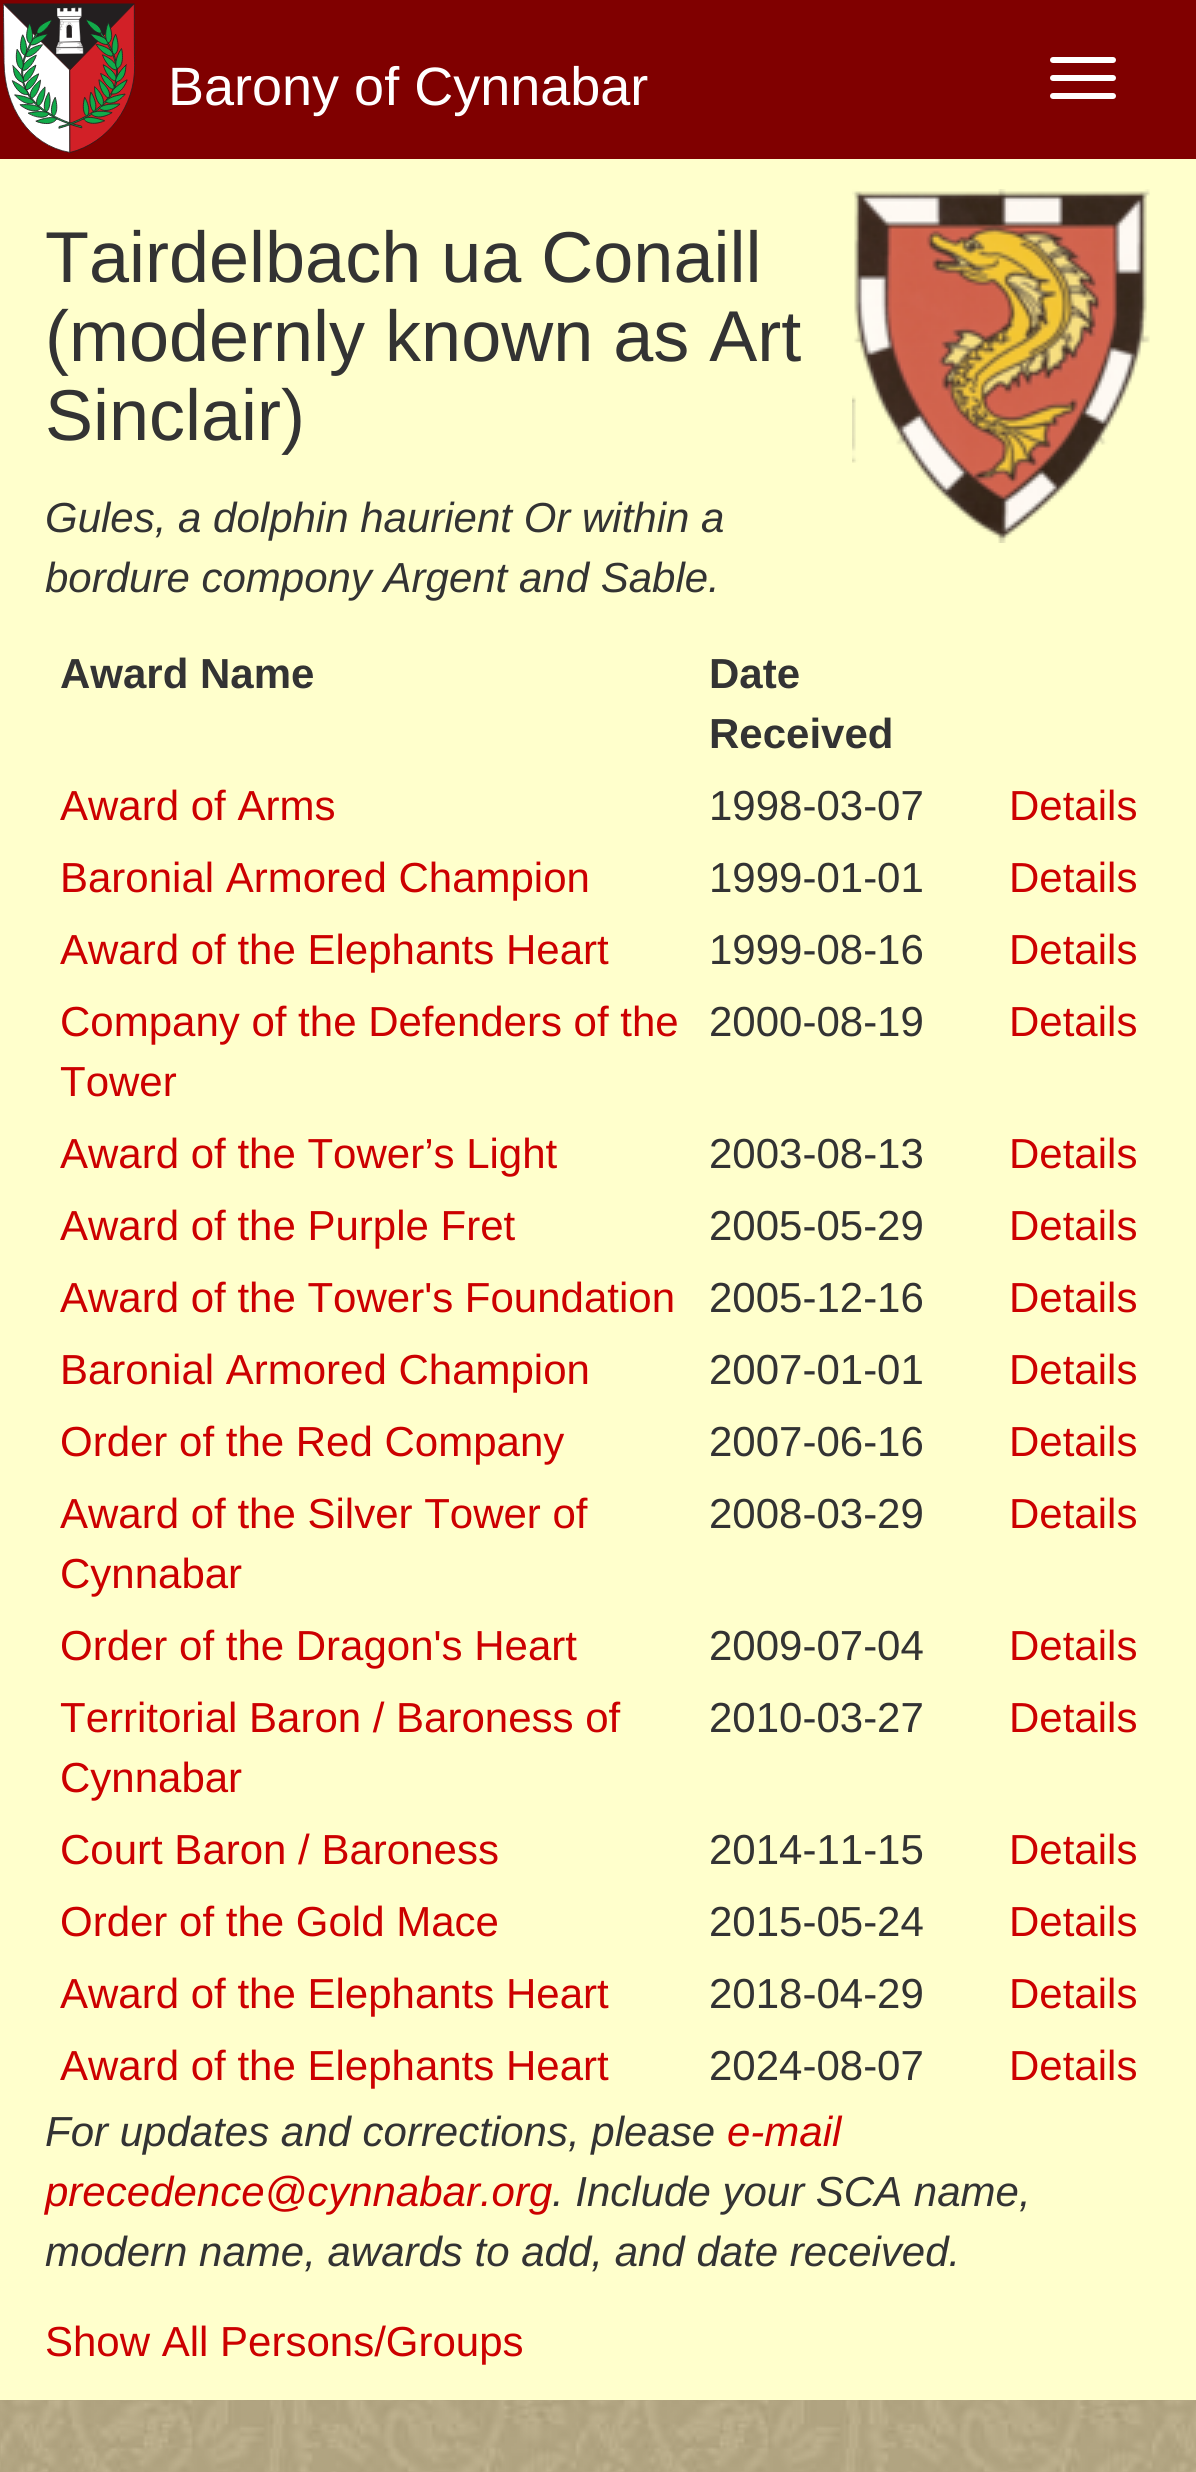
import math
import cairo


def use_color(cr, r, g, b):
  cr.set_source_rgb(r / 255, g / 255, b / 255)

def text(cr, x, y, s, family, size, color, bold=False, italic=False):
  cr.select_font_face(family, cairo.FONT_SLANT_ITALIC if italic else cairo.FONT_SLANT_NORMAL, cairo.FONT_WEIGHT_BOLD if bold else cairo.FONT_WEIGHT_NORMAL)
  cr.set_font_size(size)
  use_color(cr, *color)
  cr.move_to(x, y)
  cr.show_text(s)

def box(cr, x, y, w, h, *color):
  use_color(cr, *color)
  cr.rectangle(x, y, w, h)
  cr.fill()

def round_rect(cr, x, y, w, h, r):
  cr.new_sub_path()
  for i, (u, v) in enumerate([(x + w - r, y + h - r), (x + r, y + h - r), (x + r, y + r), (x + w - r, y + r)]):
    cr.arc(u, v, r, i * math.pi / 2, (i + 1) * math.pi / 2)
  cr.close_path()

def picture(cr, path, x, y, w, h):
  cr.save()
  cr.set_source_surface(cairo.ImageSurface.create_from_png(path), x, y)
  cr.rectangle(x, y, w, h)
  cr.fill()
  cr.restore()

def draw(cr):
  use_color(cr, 255, 255, 255)
  cr.paint()
  picture(cr, "img_01.png", 0, 2400, 1196, 72)
  box(cr, 0, 0, 1196, 159, 128, 0, 0)
  picture(cr, "img_02.png", 3, 3, 132, 150)
  use_color(cr, 255, 255, 255)
  round_rect(cr, 1050, 57, 66, 6, 3)
  cr.fill()
  round_rect(cr, 1050, 75, 66, 6, 3)
  cr.fill()
  round_rect(cr, 1050, 93, 66, 6, 3)
  cr.fill()
  box(cr, 0, 159, 1196, 2241, 255, 255, 204)
  picture(cr, "img_03.png", 852, 189, 298, 354)
  text(cr, 168, 105, "Barony of Cynnabar", "Liberation Sans", 54, (255, 255, 255))
  text(cr, 45, 282, "Tairdelbach ua Conaill", "Liberation Sans", 72, (51, 51, 51))
  text(cr, 45, 361, "(modernly known as Art", "Liberation Sans", 72, (51, 51, 51))
  text(cr, 45, 440, "Sinclair)", "Liberation Sans", 72, (51, 51, 51))
  text(cr, 45, 532, "Gules, a dolphin haurient Or within a", "Liberation Sans", 42, (51, 51, 51), italic=True)
  text(cr, 45, 592, "bordure compony Argent and Sable.", "Liberation Sans", 42, (51, 51, 51), italic=True)
  text(cr, 60, 688, "Award Name", "Liberation Sans", 42, (51, 51, 51), bold=True)
  text(cr, 709, 688, "Date", "Liberation Sans", 42, (51, 51, 51), bold=True)
  text(cr, 709, 748, "Received", "Liberation Sans", 42, (51, 51, 51), bold=True)
  text(cr, 60, 820, "Award of Arms", "Liberation Sans", 42, (204, 0, 0))
  text(cr, 709, 820, "1998-03-07", "Liberation Sans", 42, (51, 51, 51))
  text(cr, 1009, 820, "Details", "Liberation Sans", 42, (204, 0, 0))
  text(cr, 60, 892, "Baronial Armored Champion", "Liberation Sans", 42, (204, 0, 0))
  text(cr, 709, 892, "1999-01-01", "Liberation Sans", 42, (51, 51, 51))
  text(cr, 1009, 892, "Details", "Liberation Sans", 42, (204, 0, 0))
  text(cr, 60, 964, "Award of the Elephants Heart", "Liberation Sans", 42, (204, 0, 0))
  text(cr, 709, 964, "1999-08-16", "Liberation Sans", 42, (51, 51, 51))
  text(cr, 1009, 964, "Details", "Liberation Sans", 42, (204, 0, 0))
  text(cr, 60, 1036, "Company of the Defenders of the", "Liberation Sans", 42, (204, 0, 0))
  text(cr, 60, 1096, "Tower", "Liberation Sans", 42, (204, 0, 0))
  text(cr, 709, 1036, "2000-08-19", "Liberation Sans", 42, (51, 51, 51))
  text(cr, 1009, 1036, "Details", "Liberation Sans", 42, (204, 0, 0))
  text(cr, 60, 1168, "Award of the Tower’s Light", "Liberation Sans", 42, (204, 0, 0))
  text(cr, 709, 1168, "2003-08-13", "Liberation Sans", 42, (51, 51, 51))
  text(cr, 1009, 1168, "Details", "Liberation Sans", 42, (204, 0, 0))
  text(cr, 60, 1240, "Award of the Purple Fret", "Liberation Sans", 42, (204, 0, 0))
  text(cr, 709, 1240, "2005-05-29", "Liberation Sans", 42, (51, 51, 51))
  text(cr, 1009, 1240, "Details", "Liberation Sans", 42, (204, 0, 0))
  text(cr, 60, 1312, "Award of the Tower's Foundation", "Liberation Sans", 42, (204, 0, 0))
  text(cr, 709, 1312, "2005-12-16", "Liberation Sans", 42, (51, 51, 51))
  text(cr, 1009, 1312, "Details", "Liberation Sans", 42, (204, 0, 0))
  text(cr, 60, 1384, "Baronial Armored Champion", "Liberation Sans", 42, (204, 0, 0))
  text(cr, 709, 1384, "2007-01-01", "Liberation Sans", 42, (51, 51, 51))
  text(cr, 1009, 1384, "Details", "Liberation Sans", 42, (204, 0, 0))
  text(cr, 60, 1456, "Order of the Red Company", "Liberation Sans", 42, (204, 0, 0))
  text(cr, 709, 1456, "2007-06-16", "Liberation Sans", 42, (51, 51, 51))
  text(cr, 1009, 1456, "Details", "Liberation Sans", 42, (204, 0, 0))
  text(cr, 60, 1528, "Award of the Silver Tower of", "Liberation Sans", 42, (204, 0, 0))
  text(cr, 60, 1588, "Cynnabar", "Liberation Sans", 42, (204, 0, 0))
  text(cr, 709, 1528, "2008-03-29", "Liberation Sans", 42, (51, 51, 51))
  text(cr, 1009, 1528, "Details", "Liberation Sans", 42, (204, 0, 0))
  text(cr, 60, 1660, "Order of the Dragon's Heart", "Liberation Sans", 42, (204, 0, 0))
  text(cr, 709, 1660, "2009-07-04", "Liberation Sans", 42, (51, 51, 51))
  text(cr, 1009, 1660, "Details", "Liberation Sans", 42, (204, 0, 0))
  text(cr, 60, 1732, "Territorial Baron / Baroness of", "Liberation Sans", 42, (204, 0, 0))
  text(cr, 60, 1792, "Cynnabar", "Liberation Sans", 42, (204, 0, 0))
  text(cr, 709, 1732, "2010-03-27", "Liberation Sans", 42, (51, 51, 51))
  text(cr, 1009, 1732, "Details", "Liberation Sans", 42, (204, 0, 0))
  text(cr, 60, 1864, "Court Baron / Baroness", "Liberation Sans", 42, (204, 0, 0))
  text(cr, 709, 1864, "2014-11-15", "Liberation Sans", 42, (51, 51, 51))
  text(cr, 1009, 1864, "Details", "Liberation Sans", 42, (204, 0, 0))
  text(cr, 60, 1936, "Order of the Gold Mace", "Liberation Sans", 42, (204, 0, 0))
  text(cr, 709, 1936, "2015-05-24", "Liberation Sans", 42, (51, 51, 51))
  text(cr, 1009, 1936, "Details", "Liberation Sans", 42, (204, 0, 0))
  text(cr, 60, 2008, "Award of the Elephants Heart", "Liberation Sans", 42, (204, 0, 0))
  text(cr, 709, 2008, "2018-04-29", "Liberation Sans", 42, (51, 51, 51))
  text(cr, 1009, 2008, "Details", "Liberation Sans", 42, (204, 0, 0))
  text(cr, 60, 2080, "Award of the Elephants Heart", "Liberation Sans", 42, (204, 0, 0))
  text(cr, 709, 2080, "2024-08-07", "Liberation Sans", 42, (51, 51, 51))
  text(cr, 1009, 2080, "Details", "Liberation Sans", 42, (204, 0, 0))
  text(cr, 45, 2146, "For updates and corrections, please", "Liberation Sans", 42, (51, 51, 51), italic=True)
  text(cr, 727, 2146, "e-mail", "Liberation Sans", 42, (204, 0, 0), italic=True)
  text(cr, 45, 2206, "precedence@cynnabar.org", "Liberation Sans", 42, (204, 0, 0), italic=True)
  text(cr, 552, 2206, ". Include your SCA name,", "Liberation Sans", 42, (51, 51, 51), italic=True)
  text(cr, 45, 2266, "modern name, awards to add, and date received.", "Liberation Sans", 42, (51, 51, 51), italic=True)
  text(cr, 45, 2356, "Show All Persons/Groups", "Liberation Sans", 42, (204, 0, 0))


surface = cairo.ImageSurface(cairo.FORMAT_RGB24, 1196, 2472)
cr = cairo.Context(surface)
options = cairo.FontOptions()
options.set_hint_metrics(cairo.HINT_METRICS_OFF)
options.set_hint_style(cairo.HINT_STYLE_NONE)
cr.set_font_options(options)
cr.set_miter_limit(4)
draw(cr)
surface.write_to_png("out.png")
